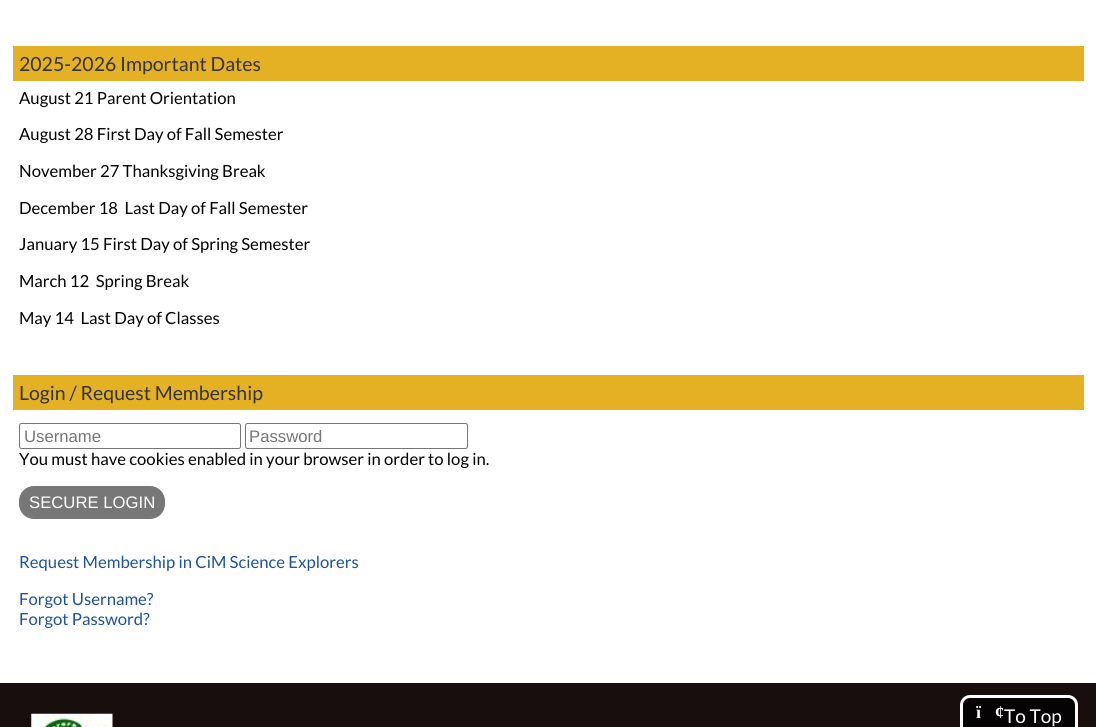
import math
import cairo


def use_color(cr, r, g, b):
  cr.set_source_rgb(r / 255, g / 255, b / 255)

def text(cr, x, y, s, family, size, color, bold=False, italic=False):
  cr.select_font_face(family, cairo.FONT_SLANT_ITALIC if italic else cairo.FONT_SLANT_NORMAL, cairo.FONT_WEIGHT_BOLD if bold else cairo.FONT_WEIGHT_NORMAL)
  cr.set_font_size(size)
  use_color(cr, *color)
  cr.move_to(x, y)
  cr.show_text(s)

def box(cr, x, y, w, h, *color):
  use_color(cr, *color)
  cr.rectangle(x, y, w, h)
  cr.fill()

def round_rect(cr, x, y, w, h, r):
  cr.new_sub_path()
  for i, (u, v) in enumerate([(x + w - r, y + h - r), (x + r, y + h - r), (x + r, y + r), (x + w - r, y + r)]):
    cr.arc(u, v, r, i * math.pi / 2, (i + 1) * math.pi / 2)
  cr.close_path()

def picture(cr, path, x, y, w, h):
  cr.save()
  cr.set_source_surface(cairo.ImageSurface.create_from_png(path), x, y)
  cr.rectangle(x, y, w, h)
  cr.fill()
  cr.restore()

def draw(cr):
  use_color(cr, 255, 255, 255)
  cr.paint()
  box(cr, 13, 46, 1071, 35, 228, 176, 36)
  box(cr, 13, 375, 1071, 35, 228, 176, 36)
  round_rect(cr, 19.5, 423.5, 221, 25, 2)
  use_color(cr, 118, 118, 118)
  cr.set_line_width(1)
  cr.stroke()
  round_rect(cr, 245.5, 423.5, 222, 25, 2)
  cr.stroke()
  use_color(cr, 119, 119, 119)
  round_rect(cr, 19, 486, 146, 33, 15)
  cr.fill()
  box(cr, 0, 683, 1096, 44, 25, 14, 14)
  picture(cr, "img_01.png", 31, 713, 82, 14)
  use_color(cr, 5, 3, 3)
  round_rect(cr, 961.5, 696.5, 115, 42, 8.5)
  cr.fill_preserve()
  use_color(cr, 255, 255, 255)
  cr.set_line_width(3)
  cr.stroke()
  text(cr, 19, 71, "2025-2026 Important Dates", "Lato", 19.5, (51, 51, 51))
  text(cr, 19, 104, "August 21 Parent Orientation", "Lato", 16.7, (0, 0, 0))
  text(cr, 19, 140, "August 28 First Day of Fall Semester", "Lato", 16.7, (0, 0, 0))
  text(cr, 19, 177, "November 27 Thanksgiving Break", "Lato", 16.7, (0, 0, 0))
  text(cr, 19, 214, "December 18  Last Day of Fall Semester", "Lato", 16.7, (0, 0, 0))
  text(cr, 19, 250, "January 15 First Day of Spring Semester", "Lato", 16.7, (0, 0, 0))
  text(cr, 19, 287, "March 12  Spring Break", "Lato", 16.7, (0, 0, 0))
  text(cr, 19, 324, "May 14  Last Day of Classes", "Lato", 16.7, (0, 0, 0))
  text(cr, 19, 400, "Login / Request Membership", "Lato", 19.5, (51, 51, 51))
  text(cr, 24, 442, "Username", "Liberation Sans", 16.7, (117, 117, 117))
  text(cr, 249, 442, "Password", "Liberation Sans", 16.7, (117, 117, 117))
  text(cr, 19, 465, "You must have cookies enabled in your browser in order to log in.", "Lato", 16.7, (0, 0, 0))
  text(cr, 29, 508, "SECURE LOGIN", "Liberation Sans", 16.7, (255, 255, 255))
  text(cr, 19, 568, "Request Membership in CiM Science Explorers", "Lato", 16.7, (29, 81, 157))
  text(cr, 19, 605, "Forgot Username?", "Lato", 16.7, (29, 81, 157))
  text(cr, 19, 625, "Forgot Password?", "Lato", 16.7, (29, 81, 157))
  text(cr, 976, 718, "ï", "Liberation Serif", 18, (255, 255, 255), bold=True)
  text(cr, 995, 718, "¢", "Liberation Serif", 18, (255, 255, 255), bold=True)
  text(cr, 1004, 723, "To Top", "Lato", 19, (255, 255, 255))


surface = cairo.ImageSurface(cairo.FORMAT_RGB24, 1096, 727)
cr = cairo.Context(surface)
options = cairo.FontOptions()
options.set_hint_metrics(cairo.HINT_METRICS_OFF)
options.set_hint_style(cairo.HINT_STYLE_NONE)
cr.set_font_options(options)
cr.set_miter_limit(4)
draw(cr)
surface.write_to_png("out.png")
